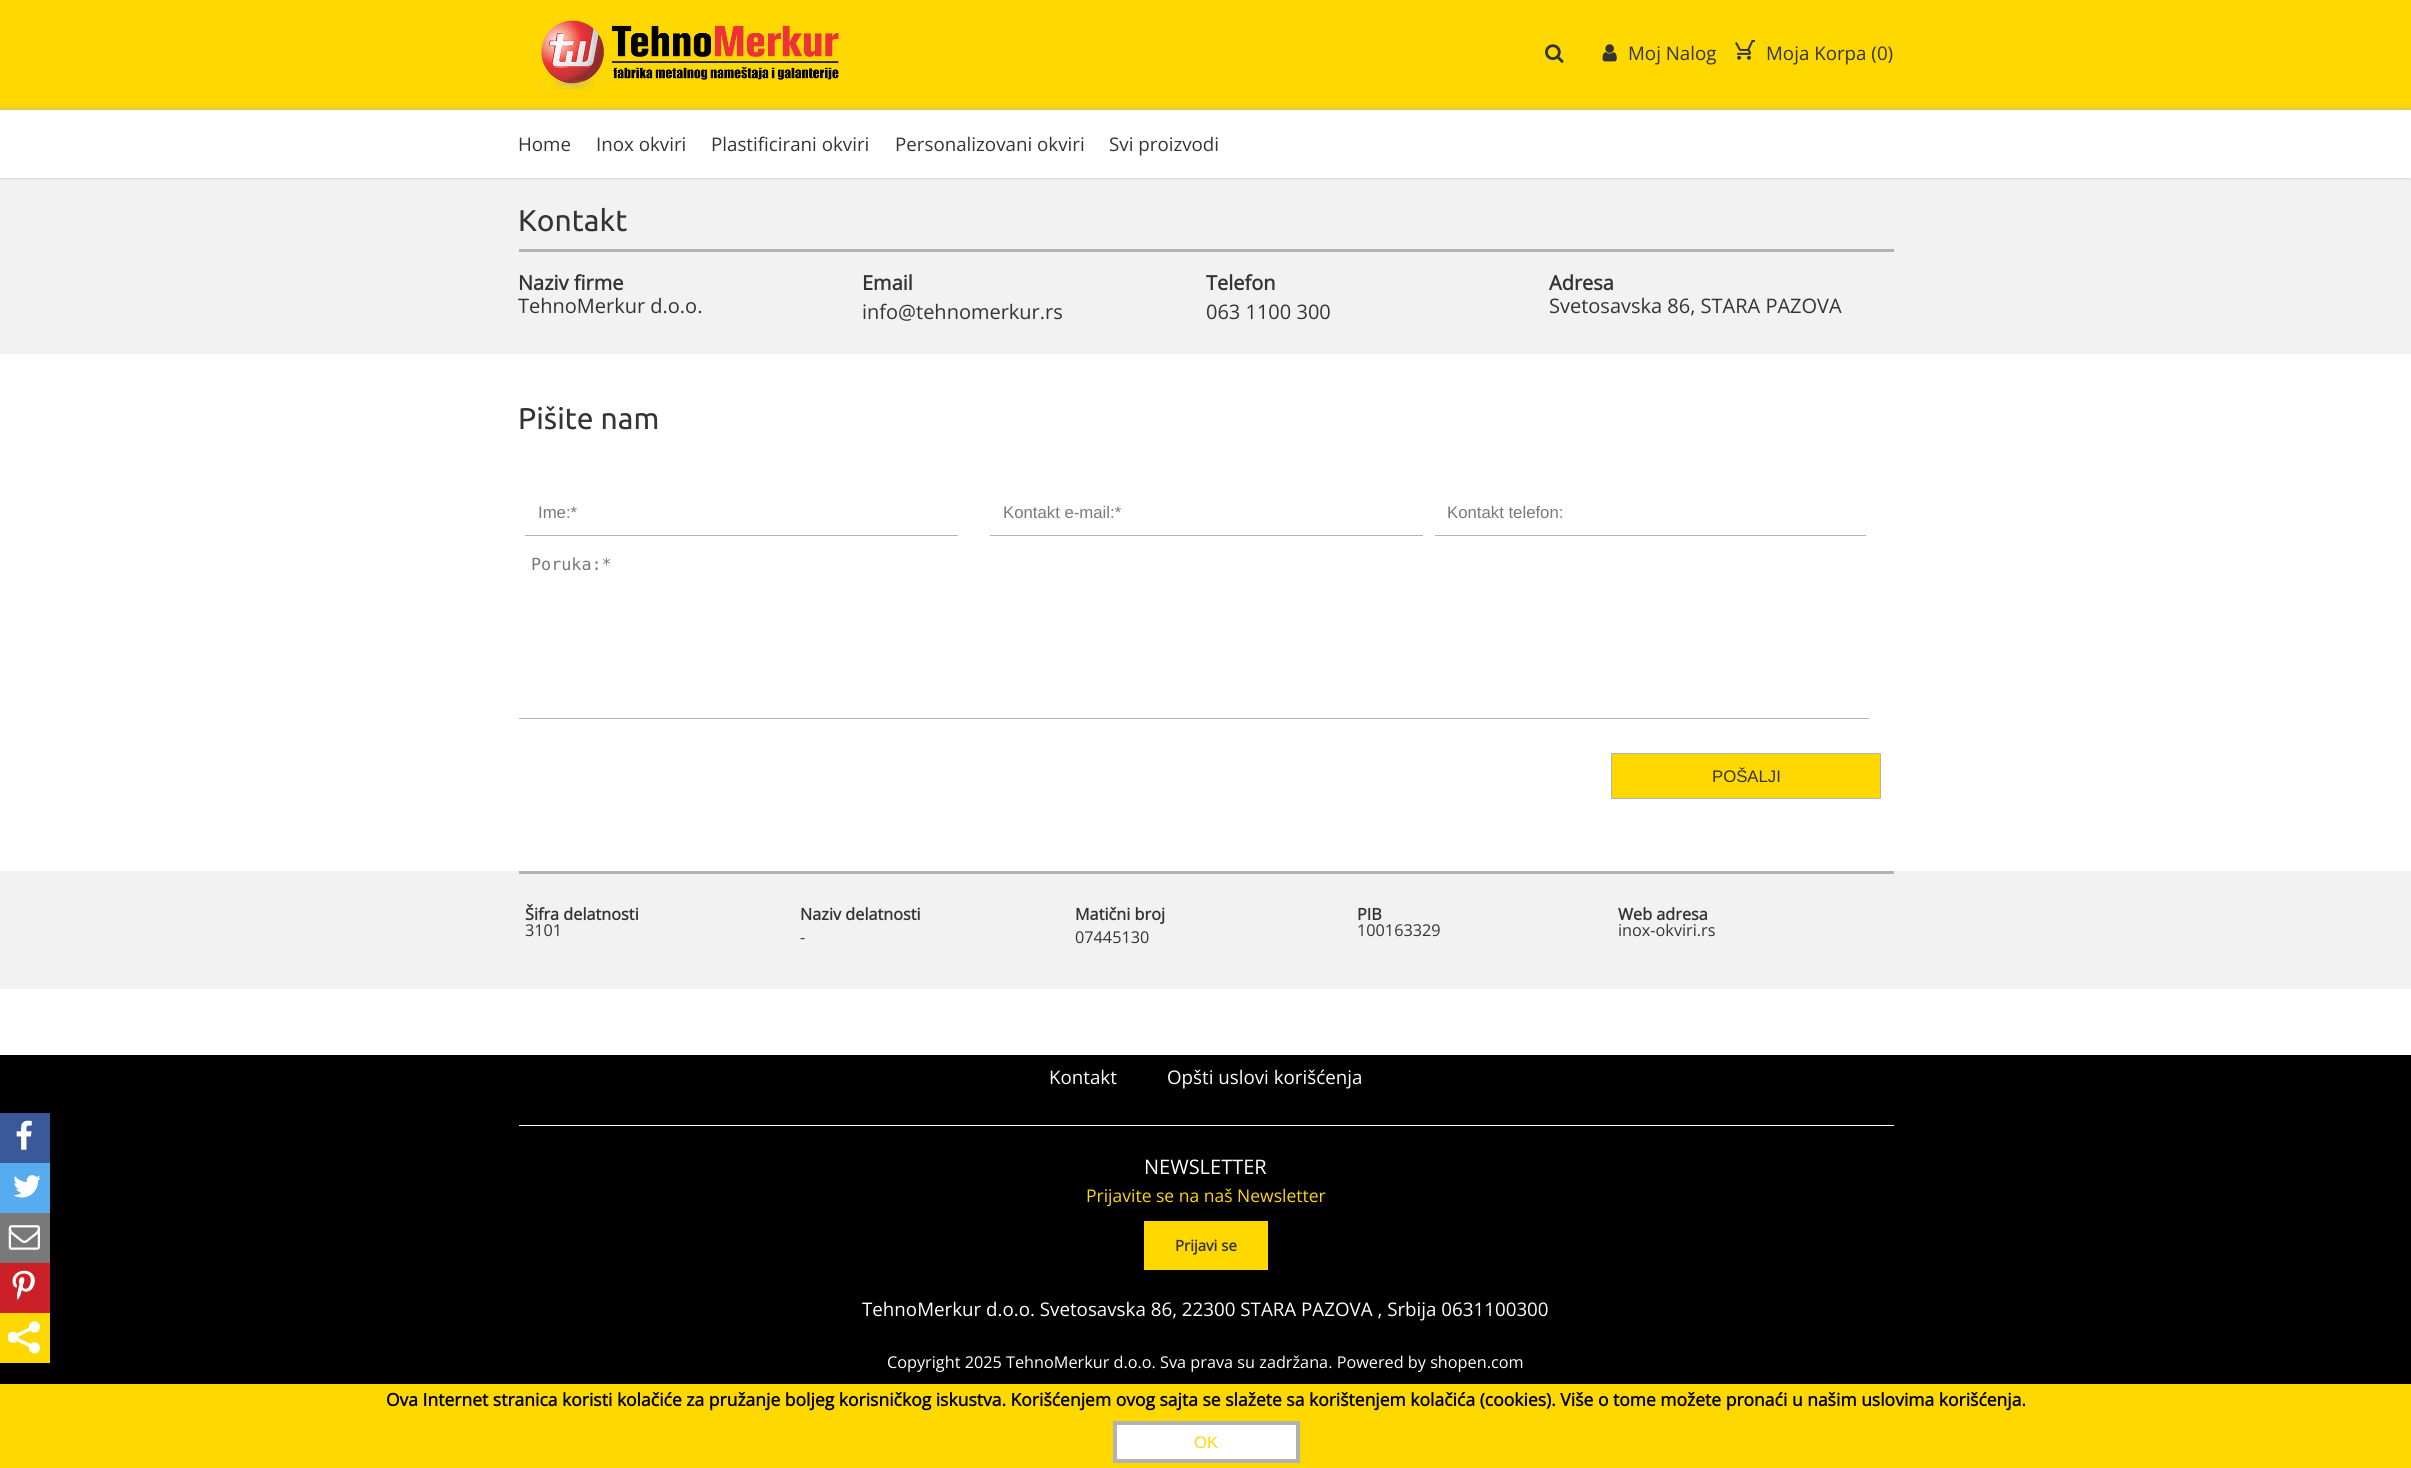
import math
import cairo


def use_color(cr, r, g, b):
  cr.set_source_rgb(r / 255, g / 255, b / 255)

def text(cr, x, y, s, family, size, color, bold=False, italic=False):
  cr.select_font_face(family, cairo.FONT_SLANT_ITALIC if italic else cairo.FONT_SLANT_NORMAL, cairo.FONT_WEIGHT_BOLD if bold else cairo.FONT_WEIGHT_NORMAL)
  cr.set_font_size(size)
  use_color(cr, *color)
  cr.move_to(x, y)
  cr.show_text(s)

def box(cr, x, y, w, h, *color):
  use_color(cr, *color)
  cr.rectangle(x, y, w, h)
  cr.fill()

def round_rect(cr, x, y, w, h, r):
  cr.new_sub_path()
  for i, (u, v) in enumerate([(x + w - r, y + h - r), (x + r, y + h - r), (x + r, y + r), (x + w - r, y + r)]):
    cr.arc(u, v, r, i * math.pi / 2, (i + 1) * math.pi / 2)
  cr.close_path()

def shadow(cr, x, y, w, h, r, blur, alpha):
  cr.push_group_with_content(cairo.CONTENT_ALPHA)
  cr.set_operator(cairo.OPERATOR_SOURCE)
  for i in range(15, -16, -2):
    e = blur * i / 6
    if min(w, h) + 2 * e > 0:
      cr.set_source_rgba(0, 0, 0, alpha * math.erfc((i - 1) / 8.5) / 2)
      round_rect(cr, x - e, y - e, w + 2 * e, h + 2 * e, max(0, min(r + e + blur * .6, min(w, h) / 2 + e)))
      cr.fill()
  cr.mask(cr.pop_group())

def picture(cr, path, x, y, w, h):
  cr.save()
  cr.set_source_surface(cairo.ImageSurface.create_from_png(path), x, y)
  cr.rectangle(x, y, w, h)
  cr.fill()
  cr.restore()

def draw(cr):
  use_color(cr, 255, 255, 255)
  cr.paint()
  box(cr, 0, 0, 2411, 110, 255, 216, 0)
  picture(cr, "img_01.png", 531, 20, 308, 70)
  picture(cr, "img_02.png", 1545, 44, 19, 19)
  picture(cr, "img_03.png", 1602, 44, 15, 18)
  picture(cr, "img_04.png", 1735, 40, 20, 20)
  use_color(cr, 178, 178, 178)
  shadow(cr, 0, 110, 2411, 68, 0, 3, 1)
  box(cr, 0, 110, 2411, 68, 255, 255, 255)
  box(cr, 0, 1055, 2411, 329, 0, 0, 0)
  box(cr, 0, 1113, 50, 50, 59, 89, 152)
  picture(cr, "img_05.png", 16, 1120, 16, 30)
  box(cr, 0, 1163, 50, 50, 85, 172, 238)
  picture(cr, "img_06.png", 13, 1175, 28, 23)
  box(cr, 0, 1213, 50, 50, 121, 121, 121)
  picture(cr, "img_07.png", 8, 1225, 32, 25)
  box(cr, 0, 1263, 50, 50, 203, 32, 39)
  picture(cr, "img_08.png", 12, 1270, 23, 30)
  box(cr, 0, 1313, 50, 50, 255, 216, 0)
  picture(cr, "img_09.png", 8, 1321, 32, 33)
  box(cr, 0, 1384, 2411, 84, 255, 216, 0)
  use_color(cr, 255, 255, 255)
  cr.rectangle(1115, 1423, 183, 38)
  cr.fill_preserve()
  use_color(cr, 178, 178, 178)
  cr.set_line_width(4)
  cr.stroke()
  box(cr, 0, 181, 2411, 173, 242, 242, 242)
  box(cr, 519, 249, 1375, 3, 178, 178, 178)
  box(cr, 525, 535, 433, 1, 178, 178, 178)
  box(cr, 990, 535, 433, 1, 178, 178, 178)
  box(cr, 1435, 535, 431, 1, 178, 178, 178)
  box(cr, 519, 718, 1350, 1, 178, 178, 178)
  use_color(cr, 255, 216, 0)
  round_rect(cr, 1611.5, 753.5, 269, 45, 0.5)
  cr.fill_preserve()
  use_color(cr, 178, 178, 178)
  cr.set_line_width(1)
  cr.stroke()
  box(cr, 0, 871, 2411, 118, 242, 242, 242)
  box(cr, 519, 871, 1375, 3, 178, 178, 178)
  box(cr, 519, 1125, 1375, 1, 255, 255, 255)
  box(cr, 1144, 1221, 124, 49, 255, 216, 0)
  text(cr, 1628, 60, "Moj Nalog", "Open Sans", 18.75, (52, 52, 52))
  text(cr, 1766, 60, "Moja Korpa (0)", "Open Sans", 18.75, (52, 52, 52))
  text(cr, 518, 151, "Home", "Open Sans", 18.75, (52, 52, 52))
  text(cr, 596, 151, "Inox okviri", "Open Sans", 18.75, (52, 52, 52))
  text(cr, 711, 151, "Plastificirani okviri", "Open Sans", 18.75, (52, 52, 52))
  text(cr, 895, 151, "Personalizovani okviri", "Open Sans", 18.75, (52, 52, 52))
  text(cr, 1109, 151, "Svi proizvodi", "Open Sans", 18.75, (52, 52, 52))
  text(cr, 386, 1406, "Ova Internet stranica koristi kolačiće za pružanje boljeg korisničkog iskustva. Korišćenjem ovog sajta se slažete sa korištenjem kolačića (cookies). Više o tome možete pronaći u našim uslovima korišćenja.", "Open Sans", 17.5, (0, 0, 0), bold=True)
  text(cr, 1194, 1448, "OK", "Liberation Sans", 16.75, (255, 216, 0))
  text(cr, 518, 231, "Kontakt", "Ubuntu", 30, (52, 52, 52))
  text(cr, 518, 290, "Naziv firme", "Open Sans", 20, (52, 52, 52), bold=True)
  text(cr, 518, 313, "TehnoMerkur d.o.o.", "Open Sans", 20, (52, 52, 52))
  text(cr, 862, 290, "Email", "Open Sans", 20, (52, 52, 52), bold=True)
  text(cr, 862, 319, "info@tehnomerkur.rs", "Open Sans", 20, (52, 52, 52))
  text(cr, 1206, 290, "Telefon", "Open Sans", 20, (52, 52, 52), bold=True)
  text(cr, 1206, 319, "063 1100 300", "Open Sans", 20, (52, 52, 52))
  text(cr, 1549, 290, "Adresa", "Open Sans", 20, (52, 52, 52), bold=True)
  text(cr, 1549, 313, "Svetosavska 86, STARA PAZOVA", "Open Sans", 20, (52, 52, 52))
  text(cr, 518, 429, "Pišite nam", "Ubuntu", 30, (52, 52, 52))
  text(cr, 538, 518, "Ime:*", "Liberation Sans", 16.75, (121, 121, 121))
  text(cr, 1003, 518, "Kontakt e-mail:*", "Liberation Sans", 16.75, (121, 121, 121))
  text(cr, 1447, 518, "Kontakt telefon:", "Liberation Sans", 16.75, (121, 121, 121))
  text(cr, 531, 570, "Poruka:*", "DejaVu Sans Mono", 16.75, (121, 121, 121))
  text(cr, 1712, 782, "POŠALJI", "Liberation Sans", 16.75, (52, 52, 52))
  text(cr, 525, 920, "Šifra delatnosti", "Open Sans", 16.25, (52, 52, 52), bold=True)
  text(cr, 525, 936, "3101", "Open Sans", 16.25, (52, 52, 52))
  text(cr, 800, 920, "Naziv delatnosti", "Open Sans", 16.25, (52, 52, 52), bold=True)
  text(cr, 800, 943, "-", "Open Sans", 16.25, (52, 52, 52))
  text(cr, 1075, 920, "Matični broj", "Open Sans", 16.25, (52, 52, 52), bold=True)
  text(cr, 1075, 943, "07445130", "Open Sans", 16.25, (52, 52, 52))
  text(cr, 1357, 920, "PIB", "Open Sans", 16.25, (52, 52, 52), bold=True)
  text(cr, 1357, 936, "100163329", "Open Sans", 16.25, (52, 52, 52))
  text(cr, 1618, 920, "Web adresa", "Open Sans", 16.25, (52, 52, 52), bold=True)
  text(cr, 1618, 936, "inox-okviri.rs", "Open Sans", 16.25, (52, 52, 52))
  text(cr, 1049, 1084, "Kontakt", "Open Sans", 18.75, (255, 255, 255))
  text(cr, 1167, 1084, "Opšti uslovi korišćenja", "Open Sans", 18.75, (255, 255, 255))
  text(cr, 1144, 1174, "NEWSLETTER", "Open Sans", 20, (255, 255, 255))
  text(cr, 1086, 1202, "Prijavite se na naš Newsletter", "Open Sans", 17.5, (255, 216, 0))
  text(cr, 1175, 1251, "Prijavi se", "Open Sans", 15, (52, 52, 52), bold=True)
  text(cr, 862, 1316, "TehnoMerkur d.o.o. Svetosavska 86, 22300 STARA PAZOVA , Srbija 0631100300", "Open Sans", 18.75, (255, 255, 255))
  text(cr, 887, 1368, "Copyright 2025 TehnoMerkur d.o.o. Sva prava su zadržana. Powered by shopen.com", "Open Sans", 16.25, (255, 255, 255))


surface = cairo.ImageSurface(cairo.FORMAT_RGB24, 2411, 1468)
cr = cairo.Context(surface)
options = cairo.FontOptions()
options.set_hint_metrics(cairo.HINT_METRICS_OFF)
options.set_hint_style(cairo.HINT_STYLE_NONE)
cr.set_font_options(options)
cr.set_miter_limit(4)
draw(cr)
surface.write_to_png("out.png")
